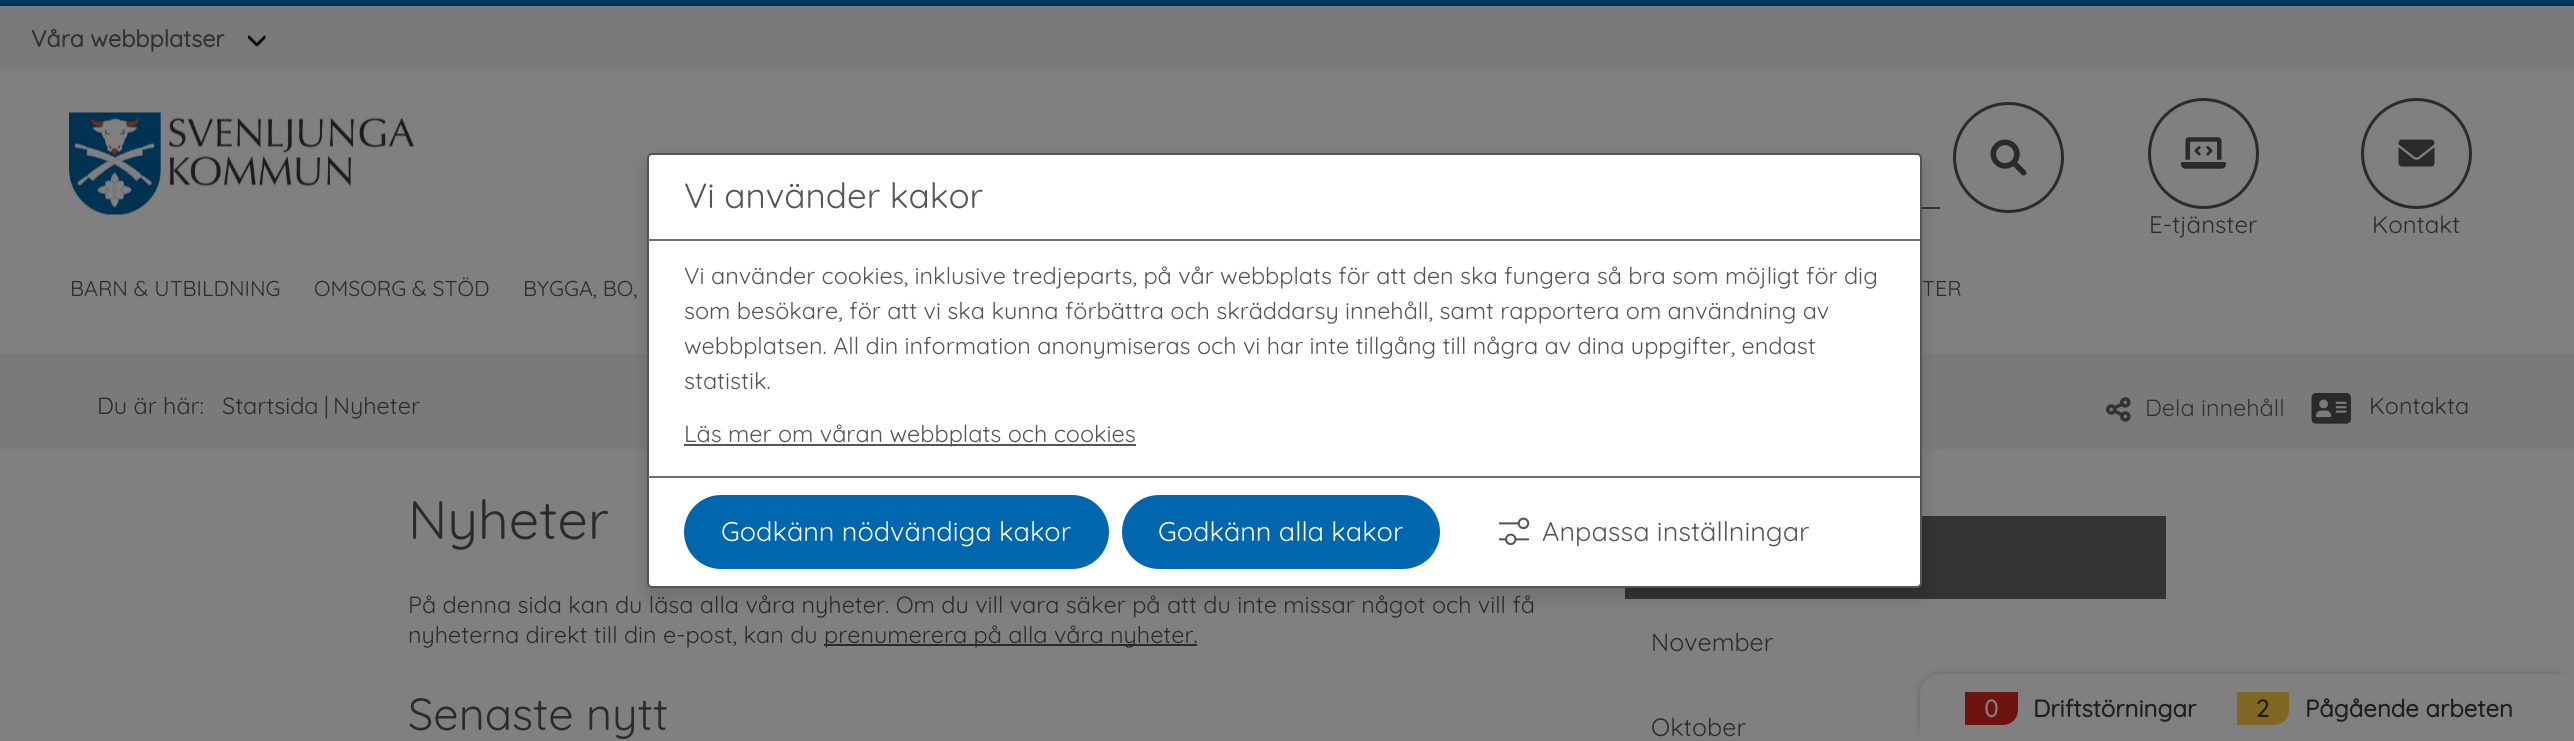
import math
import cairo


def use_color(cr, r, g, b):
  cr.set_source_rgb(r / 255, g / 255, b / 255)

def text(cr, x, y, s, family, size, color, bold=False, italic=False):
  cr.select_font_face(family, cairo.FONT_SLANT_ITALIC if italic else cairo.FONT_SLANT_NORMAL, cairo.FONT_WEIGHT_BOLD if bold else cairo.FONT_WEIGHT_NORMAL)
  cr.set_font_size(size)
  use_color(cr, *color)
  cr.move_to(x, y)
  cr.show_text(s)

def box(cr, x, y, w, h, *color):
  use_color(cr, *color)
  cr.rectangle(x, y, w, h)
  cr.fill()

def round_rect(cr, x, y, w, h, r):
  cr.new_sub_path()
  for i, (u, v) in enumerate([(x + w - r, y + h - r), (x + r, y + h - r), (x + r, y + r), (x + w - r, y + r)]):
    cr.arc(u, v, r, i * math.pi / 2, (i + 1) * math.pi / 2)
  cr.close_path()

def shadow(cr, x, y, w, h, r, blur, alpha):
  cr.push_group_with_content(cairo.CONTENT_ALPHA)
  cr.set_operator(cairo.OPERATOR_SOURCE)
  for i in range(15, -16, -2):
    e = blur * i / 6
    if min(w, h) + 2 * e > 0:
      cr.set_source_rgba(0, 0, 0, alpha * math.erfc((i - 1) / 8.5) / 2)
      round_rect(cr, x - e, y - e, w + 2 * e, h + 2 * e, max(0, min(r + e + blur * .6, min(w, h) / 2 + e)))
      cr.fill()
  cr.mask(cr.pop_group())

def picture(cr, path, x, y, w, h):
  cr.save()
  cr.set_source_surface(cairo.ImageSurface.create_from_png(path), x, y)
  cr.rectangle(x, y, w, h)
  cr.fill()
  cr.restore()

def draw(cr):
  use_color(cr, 128, 128, 128)
  cr.paint()
  box(cr, 0, 0, 2574, 6, 0, 52, 88)
  box(cr, 0, 6, 2574, 65, 123, 122, 122)
  picture(cr, "img_01.png", 247, 35, 19, 12)
  picture(cr, "img_02.png", 69, 112, 345, 103)
  box(cr, 1922, 207, 18, 2, 51, 51, 51)
  cr.arc(2008.5, 157.5, 54, 0, 2 * math.pi)
  use_color(cr, 43, 43, 43)
  cr.set_line_width(3)
  cr.stroke()
  picture(cr, "img_03.png", 1990, 139, 37, 37)
  cr.arc(2203.5, 153.5, 54, 0, 2 * math.pi)
  cr.stroke()
  picture(cr, "img_04.png", 2181, 137, 45, 32)
  cr.arc(2416.5, 153.5, 54, 0, 2 * math.pi)
  cr.stroke()
  picture(cr, "img_05.png", 2398, 139, 37, 28)
  box(cr, 0, 354, 2574, 95, 123, 122, 122)
  picture(cr, "img_06.png", 2106, 397, 25, 25)
  picture(cr, "img_07.png", 2311, 393, 40, 31)
  box(cr, 824, 644, 373, 2, 43, 43, 43)
  box(cr, 1625, 516, 541, 83, 51, 51, 51)
  use_color(cr, 0, 0, 0)
  shadow(cr, 1920, 674, 654, 67, 21, 4, 0.22)
  use_color(cr, 128, 128, 128)
  cr.new_path()
  cr.move_to(1941, 674)
  cr.line_to(2574, 674)
  cr.line_to(2574, 741)
  cr.line_to(1920, 741)
  cr.line_to(1920, 695)
  cr.curve_to(1920, 683.5, 1929.5, 674, 1941, 674)
  cr.close_path()
  cr.fill()
  use_color(cr, 110, 18, 16)
  cr.new_path()
  cr.move_to(1965, 692)
  cr.line_to(2018, 692)
  cr.line_to(2018, 710)
  cr.curve_to(2018, 718.5, 2011.5, 725, 2003, 725)
  cr.line_to(1965, 725)
  cr.close_path()
  cr.fill()
  use_color(cr, 128, 103, 35)
  cr.new_path()
  cr.move_to(2237, 692)
  cr.line_to(2289, 692)
  cr.line_to(2289, 710)
  cr.curve_to(2289, 718.5, 2282.5, 725, 2274, 725)
  cr.line_to(2237, 725)
  cr.close_path()
  cr.fill()
  use_color(cr, 0, 0, 0)
  shadow(cr, 647, 162, 1275, 435, 5, 9, 0.15)
  use_color(cr, 255, 255, 255)
  round_rect(cr, 648, 154, 1273, 433, 4)
  cr.fill_preserve()
  use_color(cr, 85, 85, 85)
  cr.set_line_width(2)
  cr.stroke()
  box(cr, 648, 239, 1272, 2, 110, 110, 110)
  box(cr, 684, 444, 452, 2, 85, 85, 85)
  box(cr, 648, 476, 1272, 2, 110, 110, 110)
  use_color(cr, 0, 103, 175)
  round_rect(cr, 685, 496, 423, 72, 36)
  cr.fill_preserve()
  cr.stroke()
  round_rect(cr, 1123, 496, 316, 72, 36)
  cr.fill_preserve()
  cr.stroke()
  picture(cr, "img_08.png", 1499, 517, 31, 29)
  text(cr, 31, 47, "Våra webbplatser", "Quicksand", 23.4, (51, 51, 51), bold=True)
  text(cr, 2149, 233, "E-tjänster", "Quicksand", 24, (43, 43, 43))
  text(cr, 2372, 233, "Kontakt", "Quicksand", 24, (43, 43, 43))
  text(cr, 70, 296, "BARN & UTBILDNING", "Quicksand", 21.5, (43, 43, 43))
  text(cr, 314, 296, "OMSORG & STÖD", "Quicksand", 21.5, (43, 43, 43))
  text(cr, 523, 296, "BYGGA, BO,", "Quicksand", 21.5, (43, 43, 43))
  text(cr, 1922, 296, "TER", "Quicksand", 21.5, (43, 43, 43))
  text(cr, 97, 414, "Du är här:", "Quicksand", 23.4, (43, 43, 43))
  text(cr, 222, 414, "Startsida", "Quicksand", 23.4, (43, 43, 43))
  text(cr, 324, 414, "|", "Quicksand", 23.4, (43, 43, 43))
  text(cr, 333, 414, "Nyheter", "Quicksand", 23.4, (43, 43, 43))
  text(cr, 2145, 416, "Dela innehåll", "Quicksand", 23.4, (51, 51, 51))
  text(cr, 2369, 414, "Kontakta", "Quicksand", 23.4, (43, 43, 43))
  text(cr, 408, 539, "Nyheter", "Quicksand", 54, (43, 43, 43))
  text(cr, 408, 613, "På denna sida kan du läsa alla våra nyheter. Om du vill vara säker på att du inte missar något och vill få", "Quicksand", 23.4, (43, 43, 43))
  text(cr, 408, 643, "nyheterna direkt till din e-post, kan du", "Quicksand", 23.4, (43, 43, 43))
  text(cr, 824, 643, "prenumerera på alla våra nyheter.", "Quicksand", 23.4, (43, 43, 43))
  text(cr, 408, 730, "Senaste nytt", "Quicksand", 45, (43, 43, 43))
  text(cr, 1651, 651, "November", "Quicksand", 25, (43, 43, 43))
  text(cr, 1651, 736, "Oktober", "Quicksand", 25, (43, 43, 43))
  text(cr, 1984, 717, "0", "Quicksand", 24, (128, 128, 128), bold=True)
  text(cr, 2033, 717, "Driftstörningar", "Quicksand", 24, (30, 30, 30), bold=True)
  text(cr, 2256, 717, "2", "Quicksand", 24, (30, 30, 30), bold=True)
  text(cr, 2305, 717, "Pågående arbeten", "Quicksand", 24, (30, 30, 30), bold=True)
  text(cr, 684, 208, "Vi använder kakor", "Quicksand", 35, (85, 85, 85))
  text(cr, 684, 284, "Vi använder cookies, inklusive tredjeparts, på vår webbplats för att den ska fungera så bra som möjligt för dig", "Quicksand", 23.4, (85, 85, 85))
  text(cr, 684, 319, "som besökare, för att vi ska kunna förbättra och skräddarsy innehåll, samt rapportera om användning av", "Quicksand", 23.4, (85, 85, 85))
  text(cr, 684, 354, "webbplatsen. All din information anonymiseras och vi har inte tillgång till några av dina uppgifter, endast", "Quicksand", 23.4, (85, 85, 85))
  text(cr, 684, 389, "statistik.", "Quicksand", 23.4, (85, 85, 85))
  text(cr, 684, 442, "Läs mer om våran webbplats och cookies", "Quicksand", 23.4, (85, 85, 85))
  text(cr, 721, 541, "Godkänn nödvändiga kakor", "Quicksand", 27, (255, 255, 255))
  text(cr, 1158, 541, "Godkänn alla kakor", "Quicksand", 27, (255, 255, 255))
  text(cr, 1542, 541, "Anpassa inställningar", "Quicksand", 27, (85, 85, 85))


surface = cairo.ImageSurface(cairo.FORMAT_RGB24, 2574, 741)
cr = cairo.Context(surface)
options = cairo.FontOptions()
options.set_hint_metrics(cairo.HINT_METRICS_OFF)
options.set_hint_style(cairo.HINT_STYLE_NONE)
cr.set_font_options(options)
cr.set_miter_limit(4)
draw(cr)
surface.write_to_png("out.png")
